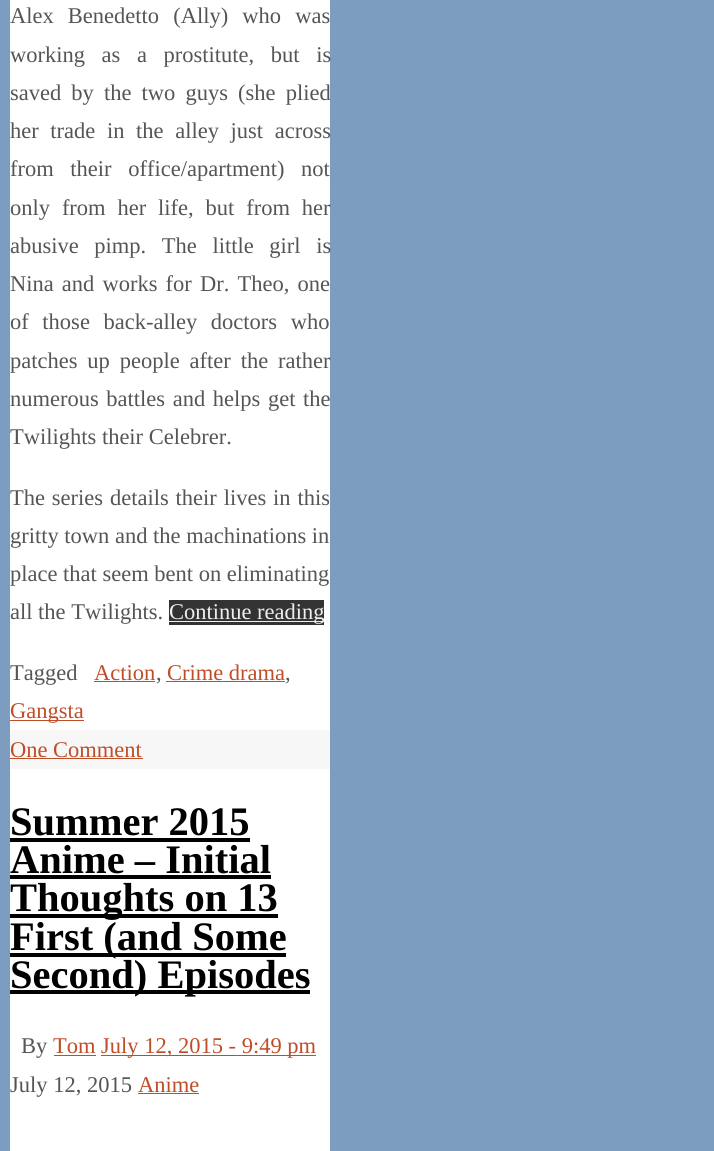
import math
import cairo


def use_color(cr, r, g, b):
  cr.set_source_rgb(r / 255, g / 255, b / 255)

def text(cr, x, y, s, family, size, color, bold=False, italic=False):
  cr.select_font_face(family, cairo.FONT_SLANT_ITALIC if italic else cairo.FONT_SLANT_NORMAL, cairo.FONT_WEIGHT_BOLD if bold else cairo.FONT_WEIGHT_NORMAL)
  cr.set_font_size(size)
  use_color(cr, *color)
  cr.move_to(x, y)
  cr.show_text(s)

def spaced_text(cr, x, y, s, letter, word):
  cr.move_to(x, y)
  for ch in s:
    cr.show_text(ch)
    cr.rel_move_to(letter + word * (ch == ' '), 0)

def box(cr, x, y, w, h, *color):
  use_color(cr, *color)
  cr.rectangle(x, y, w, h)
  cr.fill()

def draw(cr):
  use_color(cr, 124, 157, 191)
  cr.paint()
  box(cr, 10, 0, 320, 730, 255, 255, 255)
  box(cr, 169, 600, 155, 25, 51, 51, 51)
  box(cr, 169, 621, 155, 1, 238, 238, 238)
  box(cr, 94, 681, 61, 1, 191, 77, 40)
  box(cr, 166, 681, 119, 1, 191, 77, 40)
  box(cr, 10, 720, 74, 1, 191, 77, 40)
  box(cr, 10, 769, 320, 382, 255, 255, 255)
  box(cr, 10, 730, 320, 39, 247, 247, 247)
  box(cr, 10, 758, 133, 1, 191, 77, 40)
  box(cr, 10, 838, 240, 4, 0, 0, 0)
  box(cr, 10, 875, 261, 4, 0, 0, 0)
  box(cr, 10, 914, 268, 4, 0, 0, 0)
  box(cr, 10, 953, 276, 4, 0, 0, 0)
  box(cr, 10, 990, 300, 4, 0, 0, 0)
  box(cr, 54, 1055, 42, 1, 191, 77, 40)
  box(cr, 101, 1055, 215, 1, 191, 77, 40)
  box(cr, 138, 1093, 61, 1, 191, 77, 40)
  cr.select_font_face("Liberation Serif")
  cr.set_font_size(22.5)
  use_color(cr, 85, 85, 85)
  spaced_text(cr, 10, 23, "Alex Benedetto (Ally) who was", 0, 8.5)
  spaced_text(cr, 10, 62, "working as a prostitute, but is", 0, 11)
  spaced_text(cr, 10, 100, "saved by the two guys (she plied", 0, 4.5)
  spaced_text(cr, 10, 138, "her trade in the alley just across", 0, 6)
  spaced_text(cr, 10, 176, "from their office/apartment) not", 0, 11)
  spaced_text(cr, 10, 215, "only from her life, but from her", 0, 6.25)
  spaced_text(cr, 10, 253, "abusive pimp. The little girl is", 0, 10)
  spaced_text(cr, 10, 291, "Nina and works for Dr. Theo, one", 0, 2.5)
  spaced_text(cr, 10, 329, "of those back-alley doctors who", 0, 8)
  spaced_text(cr, 10, 368, "patches up people after the rather", 0, 4.25)
  spaced_text(cr, 10, 406, "numerous battles and helps get the", 0, 2)
  text(cr, 10, 444, "Twilights their Celebrer.", "Liberation Serif", 22.5, (85, 85, 85))
  spaced_text(cr, 10, 505, "The series details their lives in this", 0, 1.25)
  text(cr, 10, 543, "gritty town and the machinations in", "Liberation Serif", 22.5, (85, 85, 85))
  text(cr, 10, 581, "place that seem bent on eliminating", "Liberation Serif", 22.5, (85, 85, 85))
  text(cr, 10, 619, "all the Twilights.", "Liberation Serif", 22.5, (85, 85, 85))
  text(cr, 169, 619, "Continue reading", "Liberation Serif", 22.5, (238, 238, 238))
  text(cr, 10, 680, "Tagged", "Liberation Serif", 22.5, (85, 85, 85))
  text(cr, 94, 680, "Action", "Liberation Serif", 22.5, (191, 77, 40))
  text(cr, 156, 680, ",", "Liberation Serif", 22.5, (85, 85, 85))
  text(cr, 167, 680, "Crime drama", "Liberation Serif", 22.5, (191, 77, 40))
  text(cr, 285, 680, ",", "Liberation Serif", 22.5, (85, 85, 85))
  text(cr, 10, 718, "Gangsta", "Liberation Serif", 22.5, (191, 77, 40))
  text(cr, 10, 757, "One Comment", "Liberation Serif", 22.5, (191, 77, 40))
  text(cr, 10, 835, "Summer 2015", "Liberation Serif", 40.5, (0, 0, 0), bold=True)
  text(cr, 10, 873, "Anime – Initial", "Liberation Serif", 40.5, (0, 0, 0), bold=True)
  text(cr, 10, 911, "Thoughts on 13", "Liberation Serif", 40.5, (0, 0, 0), bold=True)
  text(cr, 10, 950, "First (and Some", "Liberation Serif", 40.5, (0, 0, 0), bold=True)
  text(cr, 10, 988, "Second) Episodes", "Liberation Serif", 40.5, (0, 0, 0), bold=True)
  text(cr, 21, 1053, "By", "Liberation Serif", 22.5, (85, 85, 85))
  text(cr, 53, 1053, "Tom", "Liberation Serif", 22.5, (191, 77, 40))
  text(cr, 101, 1053, "July 12, 2015 - 9:49 pm", "Liberation Serif", 22.5, (191, 77, 40))
  text(cr, 10, 1092, "July 12, 2015", "Liberation Serif", 22.5, (85, 85, 85))
  text(cr, 138, 1092, "Anime", "Liberation Serif", 22.5, (191, 77, 40))


surface = cairo.ImageSurface(cairo.FORMAT_RGB24, 714, 1151)
cr = cairo.Context(surface)
options = cairo.FontOptions()
options.set_hint_metrics(cairo.HINT_METRICS_OFF)
options.set_hint_style(cairo.HINT_STYLE_NONE)
cr.set_font_options(options)
cr.set_miter_limit(4)
draw(cr)
surface.write_to_png("out.png")
